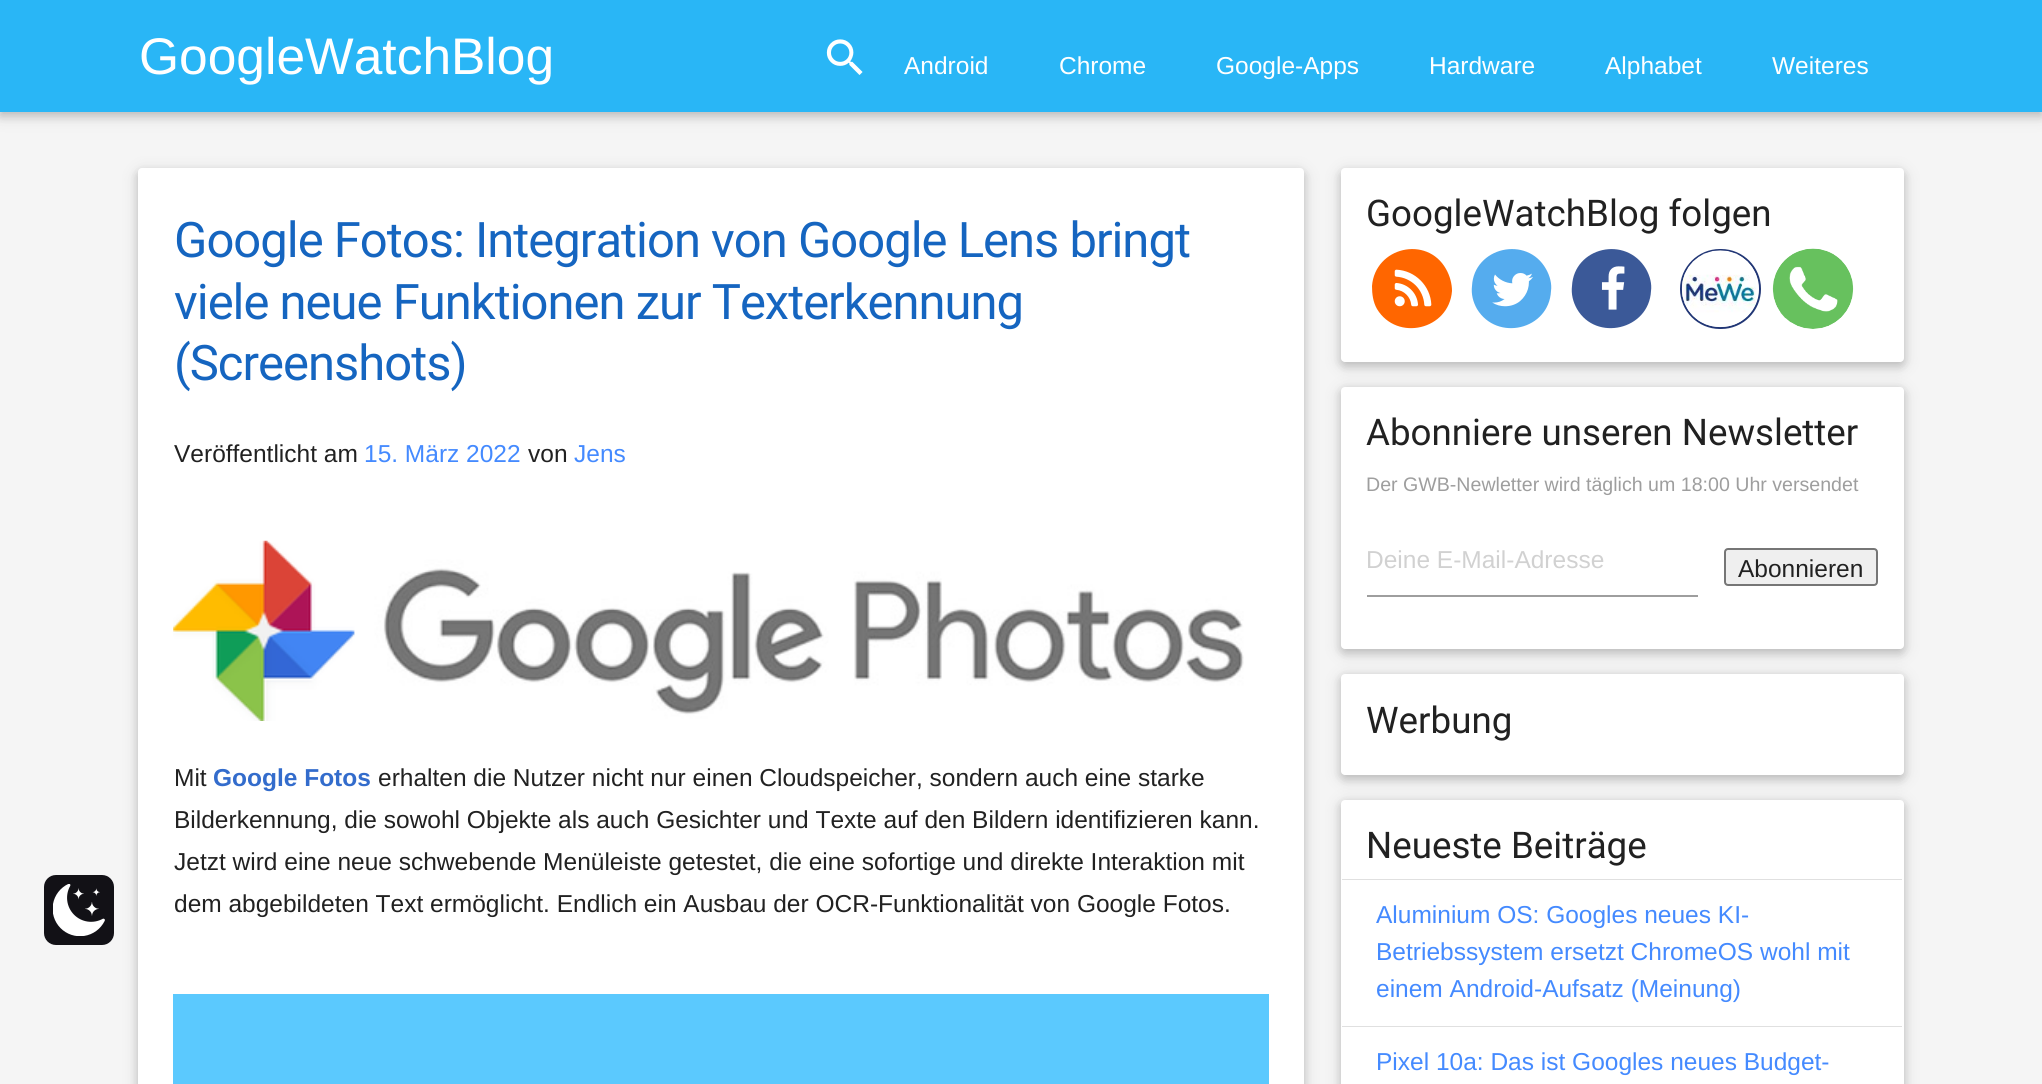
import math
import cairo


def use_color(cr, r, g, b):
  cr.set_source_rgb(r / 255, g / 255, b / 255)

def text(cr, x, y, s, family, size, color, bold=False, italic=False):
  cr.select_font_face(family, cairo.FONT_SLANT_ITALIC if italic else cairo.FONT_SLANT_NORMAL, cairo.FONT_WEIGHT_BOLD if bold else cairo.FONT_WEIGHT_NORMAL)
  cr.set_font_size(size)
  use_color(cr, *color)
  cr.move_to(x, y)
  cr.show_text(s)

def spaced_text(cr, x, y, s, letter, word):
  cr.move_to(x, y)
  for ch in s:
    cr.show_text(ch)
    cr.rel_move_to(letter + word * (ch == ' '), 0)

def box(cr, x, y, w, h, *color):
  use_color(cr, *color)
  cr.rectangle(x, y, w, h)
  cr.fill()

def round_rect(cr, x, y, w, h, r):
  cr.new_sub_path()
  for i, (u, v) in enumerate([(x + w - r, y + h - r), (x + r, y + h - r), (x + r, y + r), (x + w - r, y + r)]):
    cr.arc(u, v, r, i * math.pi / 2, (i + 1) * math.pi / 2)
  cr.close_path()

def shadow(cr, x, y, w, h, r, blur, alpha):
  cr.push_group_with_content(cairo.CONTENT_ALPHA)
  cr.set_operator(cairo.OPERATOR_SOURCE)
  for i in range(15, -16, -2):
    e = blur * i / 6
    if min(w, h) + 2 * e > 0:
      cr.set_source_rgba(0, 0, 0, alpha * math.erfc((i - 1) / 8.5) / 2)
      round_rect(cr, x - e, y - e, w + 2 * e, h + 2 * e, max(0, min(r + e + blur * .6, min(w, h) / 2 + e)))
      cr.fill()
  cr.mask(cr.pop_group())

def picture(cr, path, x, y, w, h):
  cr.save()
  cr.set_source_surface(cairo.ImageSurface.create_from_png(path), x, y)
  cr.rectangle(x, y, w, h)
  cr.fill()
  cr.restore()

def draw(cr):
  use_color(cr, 245, 245, 245)
  cr.paint()
  use_color(cr, 0, 0, 0)
  shadow(cr, 138, 172, 1166, 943, 4, 9, 0.12)
  use_color(cr, 18, 17, 22)
  round_rect(cr, 44, 875, 70, 70, 12)
  cr.fill()
  picture(cr, "img_01.png", 53, 884, 52, 52)
  use_color(cr, 0, 0, 0)
  shadow(cr, 0, 4, 2042, 112, 0, 9, 0.12)
  shadow(cr, 0, 4, 2042, 112, 0, 4.5, 0.16)
  box(cr, 0, 0, 2042, 112, 41, 182, 246)
  picture(cr, "img_02.png", 826, 39, 37, 36)
  use_color(cr, 0, 0, 0)
  shadow(cr, 138, 172, 1166, 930, 4, 4.5, 0.16)
  use_color(cr, 255, 255, 255)
  round_rect(cr, 138, 168, 1166, 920, 4)
  cr.fill()
  picture(cr, "img_03.png", 173, 540, 1071, 181)
  box(cr, 173, 994, 1096, 90, 91, 201, 254)
  use_color(cr, 0, 0, 0)
  shadow(cr, 1341, 172, 563, 194, 4, 9, 0.12)
  shadow(cr, 1341, 172, 563, 194, 4, 4.5, 0.16)
  use_color(cr, 255, 255, 255)
  round_rect(cr, 1341, 168, 563, 194, 4)
  cr.fill()
  use_color(cr, 255, 102, 0)
  cr.new_path()
  cr.move_to(1446, 269)
  cr.curve_to(1450, 276, 1452, 284, 1452, 291)
  cr.curve_to(1449, 330, 1397, 342, 1377, 309)
  cr.curve_to(1373, 302, 1372, 294, 1372, 286)
  cr.curve_to(1375, 247, 1427, 235, 1446, 269)
  cr.close_path()
  cr.fill()
  picture(cr, "img_04.png", 1394, 269, 38, 38)
  use_color(cr, 85, 172, 238)
  cr.new_path()
  cr.move_to(1546, 269)
  cr.curve_to(1550, 276, 1552, 284, 1551, 291)
  cr.curve_to(1549, 330, 1497, 342, 1477, 309)
  cr.curve_to(1473, 302, 1471, 294, 1472, 286)
  cr.curve_to(1474, 247, 1527, 235, 1546, 269)
  cr.close_path()
  cr.fill()
  picture(cr, "img_05.png", 1492, 273, 41, 34)
  use_color(cr, 59, 89, 152)
  cr.new_path()
  cr.move_to(1646, 269)
  cr.curve_to(1650, 276, 1652, 284, 1651, 291)
  cr.curve_to(1649, 330, 1596, 342, 1577, 309)
  cr.curve_to(1573, 302, 1571, 294, 1572, 286)
  cr.curve_to(1574, 247, 1626, 235, 1646, 269)
  cr.close_path()
  cr.fill()
  picture(cr, "img_06.png", 1601, 266, 24, 44)
  round_rect(cr, 1681, 250, 79, 78, 39)
  use_color(cr, 33, 54, 117)
  cr.stroke()
  picture(cr, "img_07.png", 1772, 248, 82, 81)
  picture(cr, "img_08.png", 1681, 250, 78, 78)
  use_color(cr, 0, 0, 0)
  shadow(cr, 1341, 390, 563, 263, 4, 9, 0.12)
  shadow(cr, 1341, 390, 563, 263, 4, 4.5, 0.16)
  use_color(cr, 255, 255, 255)
  round_rect(cr, 1341, 387, 563, 262, 4)
  cr.fill()
  box(cr, 1367, 595, 331, 2, 158, 158, 158)
  use_color(cr, 239, 239, 239)
  round_rect(cr, 1725, 549, 152, 36, 3)
  cr.fill_preserve()
  use_color(cr, 118, 118, 118)
  cr.stroke()
  use_color(cr, 0, 0, 0)
  shadow(cr, 1341, 677, 563, 102, 4, 9, 0.12)
  shadow(cr, 1341, 677, 563, 102, 4, 4.5, 0.16)
  use_color(cr, 255, 255, 255)
  round_rect(cr, 1341, 674, 563, 101, 4)
  cr.fill()
  use_color(cr, 0, 0, 0)
  shadow(cr, 1341, 803, 563, 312, 4, 9, 0.12)
  shadow(cr, 1341, 803, 563, 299, 4, 4.5, 0.16)
  use_color(cr, 255, 255, 255)
  round_rect(cr, 1341, 800, 563, 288, 4)
  cr.fill()
  box(cr, 1342, 879, 560, 1, 224, 224, 224)
  box(cr, 1342, 1026, 560, 1, 224, 224, 224)
  text(cr, 139, 74, "GoogleWatchBlog", "Liberation Sans", 51.5, (255, 255, 255))
  text(cr, 904, 74, "Android", "Liberation Sans", 24.5, (255, 255, 255))
  text(cr, 1059, 74, "Chrome", "Liberation Sans", 24.5, (255, 255, 255))
  text(cr, 1216, 74, "Google-Apps", "Liberation Sans", 24.5, (255, 255, 255))
  text(cr, 1429, 74, "Hardware", "Liberation Sans", 24.5, (255, 255, 255))
  text(cr, 1605, 74, "Alphabet", "Liberation Sans", 24.5, (255, 255, 255))
  text(cr, 1772, 74, "Weiteres", "Liberation Sans", 24.5, (255, 255, 255))
  cr.select_font_face("Roboto")
  cr.set_font_size(49)
  use_color(cr, 21, 101, 192)
  spaced_text(cr, 174, 257, "Google Fotos: Integration von Google Lens bringt", -1, 0)
  spaced_text(cr, 174, 319, "viele neue Funktionen zur Texterkennung", -1, 0)
  spaced_text(cr, 174, 380, "(Screenshots)", -1, 0)
  text(cr, 174, 462, "Veröffentlicht am", "Liberation Sans", 24.5, (33, 33, 33))
  text(cr, 364, 462, "15. März 2022", "Liberation Sans", 24.5, (68, 138, 255))
  text(cr, 528, 462, "von", "Liberation Sans", 24.5, (33, 33, 33))
  text(cr, 574, 462, "Jens", "Liberation Sans", 24.5, (68, 138, 255))
  text(cr, 174, 786, "Mit", "Liberation Sans", 24.5, (33, 33, 33))
  text(cr, 213, 786, "Google Fotos", "Liberation Sans", 24.5, (51, 108, 204), bold=True)
  text(cr, 378, 786, "erhalten die Nutzer nicht nur einen Cloudspeicher, sondern auch eine starke", "Liberation Sans", 24.5, (33, 33, 33))
  text(cr, 174, 828, "Bilderkennung, die sowohl Objekte als auch Gesichter und Texte auf den Bildern identifizieren kann.", "Liberation Sans", 24.5, (33, 33, 33))
  text(cr, 174, 870, "Jetzt wird eine neue schwebende Menüleiste getestet, die eine sofortige und direkte Interaktion mit", "Liberation Sans", 24.5, (33, 33, 33))
  text(cr, 174, 912, "dem abgebildeten Text ermöglicht. Endlich ein Ausbau der OCR-Funktionalität von Google Fotos.", "Liberation Sans", 24.5, (33, 33, 33))
  text(cr, 1366, 226, "GoogleWatchBlog folgen", "Roboto", 36.75, (33, 33, 33))
  text(cr, 1366, 445, "Abonniere unseren Newsletter", "Roboto", 36.75, (33, 33, 33))
  text(cr, 1366, 491, "Der GWB-Newletter wird täglich um 18:00 Uhr versendet", "Liberation Sans", 19.6, (158, 158, 158))
  text(cr, 1366, 568, "Deine E-Mail-Adresse", "Liberation Sans", 24.5, (209, 209, 209))
  text(cr, 1738, 577, "Abonnieren", "Liberation Sans", 24.5, (33, 33, 33))
  text(cr, 1366, 733, "Werbung", "Roboto", 36.75, (33, 33, 33))
  text(cr, 1366, 858, "Neueste Beiträge", "Roboto", 36.75, (33, 33, 33))
  text(cr, 1376, 923, "Aluminium OS: Googles neues KI-", "Liberation Sans", 24.5, (68, 138, 255))
  text(cr, 1376, 960, "Betriebssystem ersetzt ChromeOS wohl mit", "Liberation Sans", 24.5, (68, 138, 255))
  text(cr, 1376, 997, "einem Android-Aufsatz (Meinung)", "Liberation Sans", 24.5, (68, 138, 255))
  text(cr, 1376, 1070, "Pixel 10a: Das ist Googles neues Budget-", "Liberation Sans", 24.5, (68, 138, 255))


surface = cairo.ImageSurface(cairo.FORMAT_RGB24, 2042, 1084)
cr = cairo.Context(surface)
options = cairo.FontOptions()
options.set_hint_metrics(cairo.HINT_METRICS_OFF)
options.set_hint_style(cairo.HINT_STYLE_NONE)
cr.set_font_options(options)
cr.set_miter_limit(4)
draw(cr)
surface.write_to_png("out.png")
